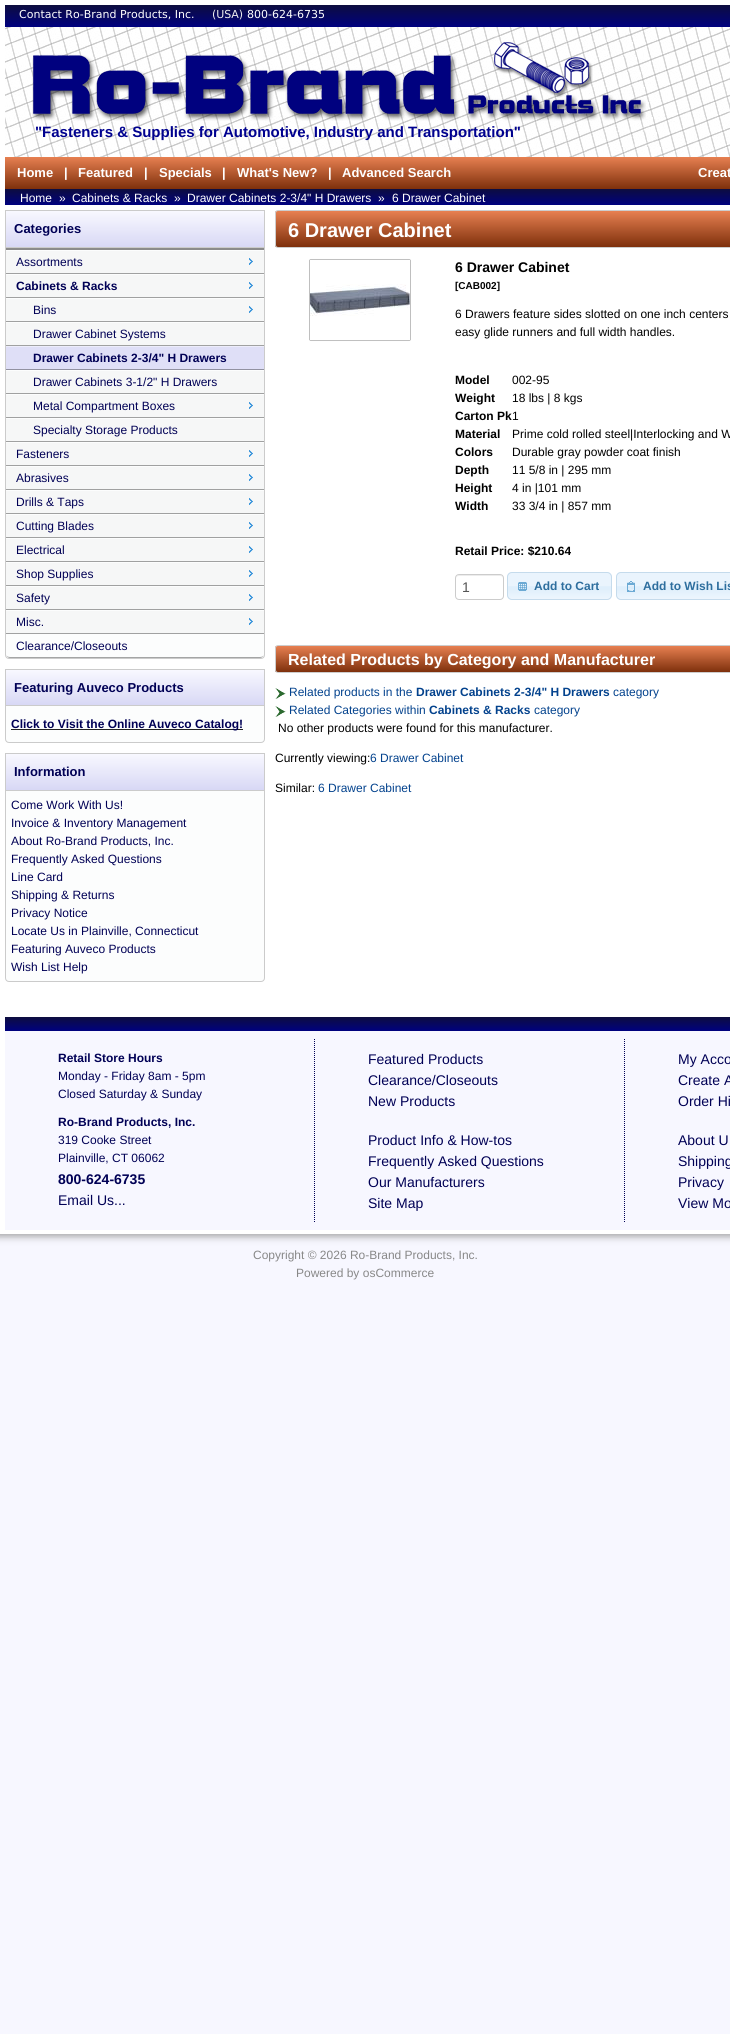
import math
import cairo


def use_color(cr, r, g, b):
  cr.set_source_rgb(r / 255, g / 255, b / 255)

def text(cr, x, y, s, family, size, color, bold=False, italic=False):
  cr.select_font_face(family, cairo.FONT_SLANT_ITALIC if italic else cairo.FONT_SLANT_NORMAL, cairo.FONT_WEIGHT_BOLD if bold else cairo.FONT_WEIGHT_NORMAL)
  cr.set_font_size(size)
  use_color(cr, *color)
  cr.move_to(x, y)
  cr.show_text(s)

def box(cr, x, y, w, h, *color):
  use_color(cr, *color)
  cr.rectangle(x, y, w, h)
  cr.fill()

def round_rect(cr, x, y, w, h, r):
  cr.new_sub_path()
  for i, (u, v) in enumerate([(x + w - r, y + h - r), (x + r, y + h - r), (x + r, y + r), (x + w - r, y + r)]):
    cr.arc(u, v, r, i * math.pi / 2, (i + 1) * math.pi / 2)
  cr.close_path()

def shadow(cr, x, y, w, h, r, blur, alpha):
  cr.push_group_with_content(cairo.CONTENT_ALPHA)
  cr.set_operator(cairo.OPERATOR_SOURCE)
  for i in range(15, -16, -2):
    e = blur * i / 6
    if min(w, h) + 2 * e > 0:
      cr.set_source_rgba(0, 0, 0, alpha * math.erfc((i - 1) / 8.5) / 2)
      round_rect(cr, x - e, y - e, w + 2 * e, h + 2 * e, max(0, min(r + e + blur * .6, min(w, h) / 2 + e)))
      cr.fill()
  cr.mask(cr.pop_group())

def picture(cr, path, x, y, w, h):
  cr.save()
  cr.set_source_surface(cairo.ImageSurface.create_from_png(path), x, y)
  cr.rectangle(x, y, w, h)
  cr.fill()
  cr.restore()

def draw(cr):
  use_color(cr, 247, 247, 255)
  cr.paint()
  use_color(cr, 153, 153, 153)
  shadow(cr, -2, -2, 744, 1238, 0, 4, 1)
  box(cr, 0, 0, 730, 1234, 255, 255, 255)
  gradient = cairo.LinearGradient(540, 5, 540, 27)
  gradient.add_color_stop_rgba(0, 0.051, 0.051, 0.247, 1)
  gradient.add_color_stop_rgba(1, 0, 0.004, 0.498, 1)
  cr.set_source(gradient)
  cr.rectangle(5, 5, 725, 22)
  cr.fill()
  picture(cr, "img_01.png", 5, 27, 725, 130)
  picture(cr, "img_02.png", 32, 42, 614, 79)
  picture(cr, "img_03.png", 726, 29, 4, 126)
  gradient = cairo.LinearGradient(540, 157, 540, 189)
  gradient.add_color_stop_rgba(0, 0.906, 0.502, 0.318, 1)
  gradient.add_color_stop_rgba(1, 0.494, 0.188, 0.047, 1)
  cr.set_source(gradient)
  cr.rectangle(5, 157, 725, 32)
  cr.fill()
  gradient = cairo.LinearGradient(540, 189, 540, 205)
  gradient.add_color_stop_rgba(0, 0.051, 0.051, 0.247, 1)
  gradient.add_color_stop_rgba(1, 0, 0.004, 0.498, 1)
  cr.set_source(gradient)
  cr.rectangle(5, 189, 725, 16)
  cr.fill()
  gradient = cairo.LinearGradient(135, 211, 135, 247)
  gradient.add_color_stop_rgba(0, 0.973, 0.973, 1, 1)
  gradient.add_color_stop_rgba(1, 0.847, 0.847, 0.961, 1)
  cr.set_source(gradient)
  cr.rectangle(6, 211, 258, 36)
  cr.fill()
  box(cr, 5, 210, 260, 1, 203, 203, 203)
  box(cr, 264, 210, 1, 37, 203, 203, 203)
  box(cr, 5, 210, 1, 37, 203, 203, 203)
  use_color(cr, 252, 253, 253)
  cr.new_path()
  cr.move_to(5.5, 247.5)
  cr.line_to(264.5, 247.5)
  cr.line_to(264.5, 655)
  cr.curve_to(264.5, 657, 263, 658.5, 261, 658.5)
  cr.line_to(9, 658.5)
  cr.curve_to(7, 658.5, 5.5, 657, 5.5, 655)
  cr.close_path()
  cr.fill_preserve()
  use_color(cr, 203, 203, 203)
  cr.set_line_width(1)
  cr.stroke()
  box(cr, 6, 248, 258, 2, 139, 139, 139)
  box(cr, 6, 251, 258, 22, 246, 247, 247)
  box(cr, 6, 273, 258, 1, 160, 161, 161)
  picture(cr, "img_04.png", 249, 258, 4, 7)
  box(cr, 6, 275, 258, 22, 246, 247, 247)
  box(cr, 6, 297, 258, 1, 160, 161, 161)
  picture(cr, "img_04.png", 249, 282, 4, 7)
  box(cr, 6, 299, 258, 22, 246, 247, 247)
  box(cr, 6, 321, 258, 1, 160, 161, 161)
  picture(cr, "img_04.png", 249, 306, 4, 7)
  box(cr, 6, 323, 258, 22, 246, 247, 247)
  box(cr, 6, 345, 258, 1, 160, 161, 161)
  box(cr, 6, 347, 258, 22, 223, 223, 247)
  box(cr, 6, 346, 258, 1, 237, 237, 251)
  box(cr, 6, 369, 258, 1, 145, 145, 161)
  box(cr, 6, 371, 258, 22, 246, 247, 247)
  box(cr, 6, 393, 258, 1, 160, 161, 161)
  box(cr, 6, 395, 258, 22, 246, 247, 247)
  box(cr, 6, 417, 258, 1, 160, 161, 161)
  picture(cr, "img_04.png", 249, 402, 4, 7)
  box(cr, 6, 419, 258, 22, 246, 247, 247)
  box(cr, 6, 441, 258, 1, 160, 161, 161)
  box(cr, 6, 443, 258, 22, 246, 247, 247)
  box(cr, 6, 465, 258, 1, 160, 161, 161)
  picture(cr, "img_04.png", 249, 450, 4, 7)
  box(cr, 6, 467, 258, 22, 246, 247, 247)
  box(cr, 6, 489, 258, 1, 160, 161, 161)
  picture(cr, "img_04.png", 249, 474, 4, 7)
  box(cr, 6, 491, 258, 22, 246, 247, 247)
  box(cr, 6, 513, 258, 1, 160, 161, 161)
  picture(cr, "img_04.png", 249, 498, 4, 7)
  box(cr, 6, 515, 258, 22, 246, 247, 247)
  box(cr, 6, 537, 258, 1, 160, 161, 161)
  picture(cr, "img_04.png", 249, 522, 4, 7)
  box(cr, 6, 539, 258, 22, 246, 247, 247)
  box(cr, 6, 561, 258, 1, 160, 161, 161)
  picture(cr, "img_04.png", 249, 546, 4, 7)
  box(cr, 6, 563, 258, 22, 246, 247, 247)
  box(cr, 6, 585, 258, 1, 160, 161, 161)
  picture(cr, "img_04.png", 249, 570, 4, 7)
  box(cr, 6, 587, 258, 22, 246, 247, 247)
  box(cr, 6, 609, 258, 1, 160, 161, 161)
  picture(cr, "img_04.png", 249, 594, 4, 7)
  box(cr, 6, 611, 258, 22, 246, 247, 247)
  box(cr, 6, 633, 258, 1, 160, 161, 161)
  picture(cr, "img_04.png", 249, 618, 4, 7)
  cr.set_source_rgba(0, 0, 0, 0.35)
  cr.new_path()
  cr.move_to(10, 658)
  cr.line_to(260, 658)
  cr.curve_to(262, 658, 264, 656, 264, 654)
  cr.curve_to(264, 656, 262, 657, 260, 657)
  cr.line_to(10, 657)
  cr.curve_to(8, 657, 6, 656, 6, 654)
  cr.curve_to(6, 656, 8, 658, 10, 658)
  cr.close_path()
  cr.fill()
  gradient = cairo.LinearGradient(135, 670, 135, 705)
  gradient.add_color_stop_rgba(0, 0.973, 0.973, 1, 1)
  gradient.add_color_stop_rgba(1, 0.847, 0.847, 0.961, 1)
  cr.set_source(gradient)
  cr.rectangle(6, 670, 258, 35)
  cr.fill()
  box(cr, 5, 669, 260, 1, 203, 203, 203)
  box(cr, 264, 669, 1, 36, 203, 203, 203)
  box(cr, 5, 669, 1, 36, 203, 203, 203)
  use_color(cr, 252, 253, 253)
  cr.new_path()
  cr.move_to(5.5, 705.5)
  cr.line_to(264.5, 705.5)
  cr.line_to(264.5, 739)
  cr.curve_to(264.5, 741, 263, 742.5, 261, 742.5)
  cr.line_to(9, 742.5)
  cr.curve_to(7, 742.5, 5.5, 741, 5.5, 739)
  cr.close_path()
  cr.fill_preserve()
  use_color(cr, 203, 203, 203)
  cr.stroke()
  box(cr, 11, 729, 232, 1, 34, 34, 34)
  gradient = cairo.LinearGradient(135, 754, 135, 790)
  gradient.add_color_stop_rgba(0, 0.973, 0.973, 1, 1)
  gradient.add_color_stop_rgba(1, 0.847, 0.847, 0.961, 1)
  cr.set_source(gradient)
  cr.rectangle(6, 754, 258, 36)
  cr.fill()
  box(cr, 5, 753, 260, 1, 203, 203, 203)
  box(cr, 264, 753, 1, 37, 203, 203, 203)
  box(cr, 5, 753, 1, 37, 203, 203, 203)
  use_color(cr, 252, 253, 253)
  cr.new_path()
  cr.move_to(5.5, 790.5)
  cr.line_to(264.5, 790.5)
  cr.line_to(264.5, 978)
  cr.curve_to(264.5, 980, 263, 981.5, 261, 981.5)
  cr.line_to(9, 981.5)
  cr.curve_to(7, 981.5, 5.5, 980, 5.5, 978)
  cr.close_path()
  cr.fill_preserve()
  use_color(cr, 203, 203, 203)
  cr.stroke()
  cr.save()
  round_rect(cr, 275, 210, 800, 38, 3)
  cr.clip()
  gradient = cairo.LinearGradient(675, 211, 675, 247)
  gradient.add_color_stop_rgba(0, 0.906, 0.502, 0.318, 1)
  gradient.add_color_stop_rgba(1, 0.494, 0.188, 0.047, 1)
  cr.set_source(gradient)
  cr.rectangle(275, 211, 455, 36)
  cr.fill()
  cr.restore()
  round_rect(cr, 275.5, 210.5, 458, 37, 2.5)
  use_color(cr, 205, 205, 205)
  cr.stroke()
  cr.save()
  cr.set_fill_rule(cairo.FILL_RULE_EVEN_ODD)
  cr.new_path()
  cr.move_to(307, 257)
  cr.line_to(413, 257)
  cr.line_to(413, 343)
  cr.line_to(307, 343)
  cr.close_path()
  cr.move_to(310, 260)
  cr.line_to(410, 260)
  cr.line_to(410, 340)
  cr.line_to(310, 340)
  cr.close_path()
  cr.clip()
  use_color(cr, 0, 0, 0)
  shadow(cr, 310, 260, 100, 80, 0, 0.5, 1)
  cr.restore()
  picture(cr, "img_05.png", 310, 284, 100, 32)
  use_color(cr, 236, 236, 236)
  cr.new_path()
  cr.move_to(459, 576)
  cr.line_to(500, 576)
  cr.curve_to(502, 576, 503, 577, 503, 579)
  cr.curve_to(503, 573, 497, 575, 493, 575)
  cr.line_to(466, 575)
  cr.curve_to(462, 575, 456, 573, 456, 579)
  cr.curve_to(456, 577, 457, 576, 459, 576)
  cr.close_path()
  cr.fill()
  round_rect(cr, 455.5, 574.5, 48, 25, 3.5)
  use_color(cr, 204, 204, 204)
  cr.stroke()
  picture(cr, "img_06.png", 507, 572, 105, 28)
  round_rect(cr, 507.5, 572.5, 104, 27, 4.5)
  use_color(cr, 197, 219, 236)
  cr.stroke()
  picture(cr, "img_07.png", 518, 582, 9, 9)
  picture(cr, "img_08.png", 616, 572, 114, 28)
  round_rect(cr, 616.5, 572.5, 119, 27, 4.5)
  cr.stroke()
  picture(cr, "img_09.png", 627, 581, 8, 11)
  cr.save()
  round_rect(cr, 275, 645, 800, 28, 3)
  cr.clip()
  gradient = cairo.LinearGradient(675, 646, 675, 672)
  gradient.add_color_stop_rgba(0, 0.906, 0.502, 0.318, 1)
  gradient.add_color_stop_rgba(1, 0.494, 0.188, 0.047, 1)
  cr.set_source(gradient)
  cr.rectangle(275, 646, 455, 26)
  cr.fill()
  cr.restore()
  round_rect(cr, 275.5, 645.5, 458, 27, 2.5)
  use_color(cr, 205, 205, 205)
  cr.stroke()
  picture(cr, "img_10.png", 275, 688, 11, 11)
  picture(cr, "img_10.png", 275, 706, 11, 11)
  gradient = cairo.LinearGradient(540, 1017, 540, 1031)
  gradient.add_color_stop_rgba(0, 0.051, 0.051, 0.247, 1)
  gradient.add_color_stop_rgba(1, 0, 0.004, 0.498, 1)
  cr.set_source(gradient)
  cr.rectangle(5, 1017, 725, 14)
  cr.fill()
  box(cr, 5, 1031, 725, 199, 247, 247, 255)
  cr.new_path()
  cr.move_to(314.5, 1039)
  cr.line_to(314.5, 1222)
  use_color(cr, 0, 0, 85)
  cr.set_dash([1, 1])
  cr.stroke()
  cr.new_path()
  cr.move_to(624.5, 1039)
  cr.line_to(624.5, 1222)
  cr.stroke()
  text(cr, 19, 18, "Contact Ro-Brand Products, Inc.", "DejaVu Sans", 11, (255, 255, 255))
  text(cr, 212, 18, "(USA)", "DejaVu Sans", 11, (238, 238, 238))
  text(cr, 247, 18, "800-624-6735", "DejaVu Sans", 11, (255, 255, 255))
  text(cr, 35, 137, "\"Fasteners & Supplies for Automotive, Industry and Transportation\"", "Liberation Sans", 15, (0, 1, 143), bold=True)
  text(cr, 17, 177, "Home", "Liberation Sans", 13, (255, 255, 255), bold=True)
  text(cr, 64, 177, "|", "Liberation Sans", 13, (255, 255, 255), bold=True)
  text(cr, 78, 177, "Featured", "Liberation Sans", 13, (255, 255, 255), bold=True)
  text(cr, 144, 177, "|", "Liberation Sans", 13, (255, 255, 255), bold=True)
  text(cr, 159, 177, "Specials", "Liberation Sans", 13, (255, 255, 255), bold=True)
  text(cr, 222, 177, "|", "Liberation Sans", 13, (255, 255, 255), bold=True)
  text(cr, 237, 177, "What's New?", "Liberation Sans", 13, (255, 255, 255), bold=True)
  text(cr, 328, 177, "|", "Liberation Sans", 13, (255, 255, 255), bold=True)
  text(cr, 342, 177, "Advanced Search", "Liberation Sans", 13, (255, 255, 255), bold=True)
  text(cr, 698, 177, "Creat", "Liberation Sans", 13, (255, 255, 255), bold=True)
  text(cr, 20, 202, "Home", "Liberation Sans", 12, (255, 255, 255))
  text(cr, 59, 202, "»", "Liberation Sans", 12, (255, 255, 255))
  text(cr, 72, 202, "Cabinets & Racks", "Liberation Sans", 12, (255, 255, 255))
  text(cr, 174, 202, "»", "Liberation Sans", 12, (255, 255, 255))
  text(cr, 187, 202, "Drawer Cabinets 2-3/4\" H Drawers", "Liberation Sans", 12, (255, 255, 255))
  text(cr, 378, 202, "»", "Liberation Sans", 12, (255, 255, 255))
  text(cr, 392, 202, "6 Drawer Cabinet", "Liberation Sans", 12, (255, 255, 255))
  text(cr, 14, 233, "Categories", "Liberation Sans", 13, (0, 0, 85), bold=True)
  text(cr, 16, 266, "Assortments", "Liberation Sans", 12, (0, 0, 85))
  text(cr, 16, 290, "Cabinets & Racks", "Liberation Sans", 12, (0, 0, 85), bold=True)
  text(cr, 33, 314, "Bins", "Liberation Sans", 12, (0, 0, 85))
  text(cr, 33, 338, "Drawer Cabinet Systems", "Liberation Sans", 12, (0, 0, 85))
  text(cr, 33, 362, "Drawer Cabinets 2-3/4\" H Drawers", "Liberation Sans", 12, (0, 0, 85), bold=True)
  text(cr, 33, 386, "Drawer Cabinets 3-1/2\" H Drawers", "Liberation Sans", 12, (0, 0, 85))
  text(cr, 33, 410, "Metal Compartment Boxes", "Liberation Sans", 12, (0, 0, 85))
  text(cr, 33, 434, "Specialty Storage Products", "Liberation Sans", 12, (0, 0, 85))
  text(cr, 16, 458, "Fasteners", "Liberation Sans", 12, (0, 0, 85))
  text(cr, 16, 482, "Abrasives", "Liberation Sans", 12, (0, 0, 85))
  text(cr, 16, 506, "Drills & Taps", "Liberation Sans", 12, (0, 0, 85))
  text(cr, 16, 530, "Cutting Blades", "Liberation Sans", 12, (0, 0, 85))
  text(cr, 16, 554, "Electrical", "Liberation Sans", 12, (0, 0, 85))
  text(cr, 16, 578, "Shop Supplies", "Liberation Sans", 12, (0, 0, 85))
  text(cr, 16, 602, "Safety", "Liberation Sans", 12, (0, 0, 85))
  text(cr, 16, 626, "Misc.", "Liberation Sans", 12, (0, 0, 85))
  text(cr, 16, 650, "Clearance/Closeouts", "Liberation Sans", 12, (0, 0, 85))
  text(cr, 14, 692, "Featuring Auveco Products", "Liberation Sans", 13, (0, 0, 85), bold=True)
  text(cr, 11, 728, "Click to Visit the Online Auveco Catalog!", "Liberation Sans", 12, (0, 0, 85), bold=True)
  text(cr, 14, 776, "Information", "Liberation Sans", 13, (0, 0, 85), bold=True)
  text(cr, 11, 809, "Come Work With Us!", "Liberation Sans", 12, (0, 0, 85))
  text(cr, 11, 827, "Invoice & Inventory Management", "Liberation Sans", 12, (0, 0, 85))
  text(cr, 11, 845, "About Ro-Brand Products, Inc.", "Liberation Sans", 12, (0, 0, 85))
  text(cr, 11, 863, "Frequently Asked Questions", "Liberation Sans", 12, (0, 0, 85))
  text(cr, 11, 881, "Line Card", "Liberation Sans", 12, (0, 0, 85))
  text(cr, 11, 899, "Shipping & Returns", "Liberation Sans", 12, (0, 0, 85))
  text(cr, 11, 917, "Privacy Notice", "Liberation Sans", 12, (0, 0, 85))
  text(cr, 11, 935, "Locate Us in Plainville, Connecticut", "Liberation Sans", 12, (0, 0, 85))
  text(cr, 11, 953, "Featuring Auveco Products", "Liberation Sans", 12, (0, 0, 85))
  text(cr, 11, 971, "Wish List Help", "Liberation Sans", 12, (0, 0, 85))
  text(cr, 288, 237, "6 Drawer Cabinet", "Liberation Sans", 20, (255, 255, 255), bold=True)
  text(cr, 455, 272, "6 Drawer Cabinet", "Liberation Sans", 14, (0, 0, 0), bold=True)
  text(cr, 455, 289, "[CAB002]", "Liberation Sans", 10, (0, 0, 0), bold=True)
  text(cr, 455, 318, "6 Drawers feature sides slotted on one inch centers", "Liberation Sans", 12, (0, 0, 0))
  text(cr, 455, 336, "easy glide runners and full width handles.", "Liberation Sans", 12, (0, 0, 0))
  text(cr, 455, 384, "Model", "Liberation Sans", 12, (0, 0, 0), bold=True)
  text(cr, 512, 384, "002-95", "Liberation Sans", 12, (0, 0, 0))
  text(cr, 455, 402, "Weight", "Liberation Sans", 12, (0, 0, 0), bold=True)
  text(cr, 512, 402, "18 lbs | 8 kgs", "Liberation Sans", 12, (0, 0, 0))
  text(cr, 455, 420, "Carton Pk", "Liberation Sans", 12, (0, 0, 0), bold=True)
  text(cr, 512, 420, "1", "Liberation Sans", 12, (0, 0, 0))
  text(cr, 455, 438, "Material", "Liberation Sans", 12, (0, 0, 0), bold=True)
  text(cr, 512, 438, "Prime cold rolled steel|Interlocking and W", "Liberation Sans", 12, (0, 0, 0))
  text(cr, 455, 456, "Colors", "Liberation Sans", 12, (0, 0, 0), bold=True)
  text(cr, 512, 456, "Durable gray powder coat finish", "Liberation Sans", 12, (0, 0, 0))
  text(cr, 455, 474, "Depth", "Liberation Sans", 12, (0, 0, 0), bold=True)
  text(cr, 512, 474, "11 5/8 in | 295 mm", "Liberation Sans", 12, (0, 0, 0))
  text(cr, 455, 492, "Height", "Liberation Sans", 12, (0, 0, 0), bold=True)
  text(cr, 512, 492, "4 in |101 mm", "Liberation Sans", 12, (0, 0, 0))
  text(cr, 455, 510, "Width", "Liberation Sans", 12, (0, 0, 0), bold=True)
  text(cr, 512, 510, "33 3/4 in | 857 mm", "Liberation Sans", 12, (0, 0, 0))
  text(cr, 455, 555, "Retail Price: $210.64", "Liberation Sans", 12, (0, 0, 0), bold=True)
  text(cr, 462, 592, "1", "Liberation Sans", 14, (85, 85, 85))
  text(cr, 534, 590, "Add to Cart", "Liberation Sans", 12, (46, 110, 158), bold=True)
  text(cr, 643, 590, "Add to Wish Lis", "Liberation Sans", 12, (46, 110, 158), bold=True)
  text(cr, 288, 665, "Related Products by Category and Manufacturer", "Liberation Sans", 16, (255, 255, 255), bold=True)
  text(cr, 289, 696, "Related products in the", "Liberation Sans", 12, (3, 66, 141))
  text(cr, 416, 696, "Drawer Cabinets 2-3/4\" H Drawers", "Liberation Sans", 12, (3, 66, 141), bold=True)
  text(cr, 613, 696, "category", "Liberation Sans", 12, (3, 66, 141))
  text(cr, 289, 714, "Related Categories within", "Liberation Sans", 12, (3, 66, 141))
  text(cr, 429, 714, "Cabinets & Racks", "Liberation Sans", 12, (3, 66, 141), bold=True)
  text(cr, 534, 714, "category", "Liberation Sans", 12, (3, 66, 141))
  text(cr, 278, 732, "No other products were found for this manufacturer.", "Liberation Sans", 12, (0, 0, 0))
  text(cr, 275, 762, "Currently viewing:", "Liberation Sans", 12, (0, 0, 0))
  text(cr, 370, 762, "6 Drawer Cabinet", "Liberation Sans", 12, (3, 66, 141))
  text(cr, 275, 792, "Similar:", "Liberation Sans", 12, (0, 0, 0))
  text(cr, 318, 792, "6 Drawer Cabinet", "Liberation Sans", 12, (3, 66, 141))
  text(cr, 58, 1062, "Retail Store Hours", "Liberation Sans", 12, (0, 0, 85), bold=True)
  text(cr, 58, 1080, "Monday - Friday 8am - 5pm", "Liberation Sans", 12, (0, 0, 85))
  text(cr, 58, 1098, "Closed Saturday & Sunday", "Liberation Sans", 12, (0, 0, 85))
  text(cr, 58, 1126, "Ro-Brand Products, Inc.", "Liberation Sans", 12, (0, 0, 85), bold=True)
  text(cr, 58, 1144, "319 Cooke Street", "Liberation Sans", 12, (0, 0, 85))
  text(cr, 58, 1162, "Plainville, CT 06062", "Liberation Sans", 12, (0, 0, 85))
  text(cr, 58, 1184, "800-624-6735", "Liberation Sans", 14, (0, 0, 85), bold=True)
  text(cr, 58, 1205, "Email Us...", "Liberation Sans", 14, (0, 0, 85))
  text(cr, 368, 1064, "Featured Products", "Liberation Sans", 14, (0, 0, 85))
  text(cr, 368, 1085, "Clearance/Closeouts", "Liberation Sans", 14, (0, 0, 85))
  text(cr, 368, 1106, "New Products", "Liberation Sans", 14, (0, 0, 85))
  text(cr, 368, 1145, "Product Info & How-tos", "Liberation Sans", 14, (0, 0, 85))
  text(cr, 368, 1166, "Frequently Asked Questions", "Liberation Sans", 14, (0, 0, 85))
  text(cr, 368, 1187, "Our Manufacturers", "Liberation Sans", 14, (0, 0, 85))
  text(cr, 368, 1208, "Site Map", "Liberation Sans", 14, (0, 0, 85))
  text(cr, 678, 1064, "My Acco", "Liberation Sans", 14, (0, 0, 85))
  text(cr, 678, 1085, "Create A", "Liberation Sans", 14, (0, 0, 85))
  text(cr, 678, 1106, "Order Hi", "Liberation Sans", 14, (0, 0, 85))
  text(cr, 678, 1145, "About U", "Liberation Sans", 14, (0, 0, 85))
  text(cr, 678, 1166, "Shipping", "Liberation Sans", 14, (0, 0, 85))
  text(cr, 678, 1187, "Privacy", "Liberation Sans", 14, (0, 0, 85))
  text(cr, 678, 1208, "View Mo", "Liberation Sans", 14, (0, 0, 85))
  text(cr, 253, 1259, "Copyright © 2026 Ro-Brand Products, Inc.", "Liberation Sans", 12, (136, 136, 136))
  text(cr, 296, 1277, "Powered by osCommerce", "Liberation Sans", 12, (136, 136, 136))


surface = cairo.ImageSurface(cairo.FORMAT_RGB24, 730, 2034)
cr = cairo.Context(surface)
options = cairo.FontOptions()
options.set_hint_metrics(cairo.HINT_METRICS_OFF)
options.set_hint_style(cairo.HINT_STYLE_NONE)
cr.set_font_options(options)
cr.set_miter_limit(4)
draw(cr)
surface.write_to_png("out.png")
